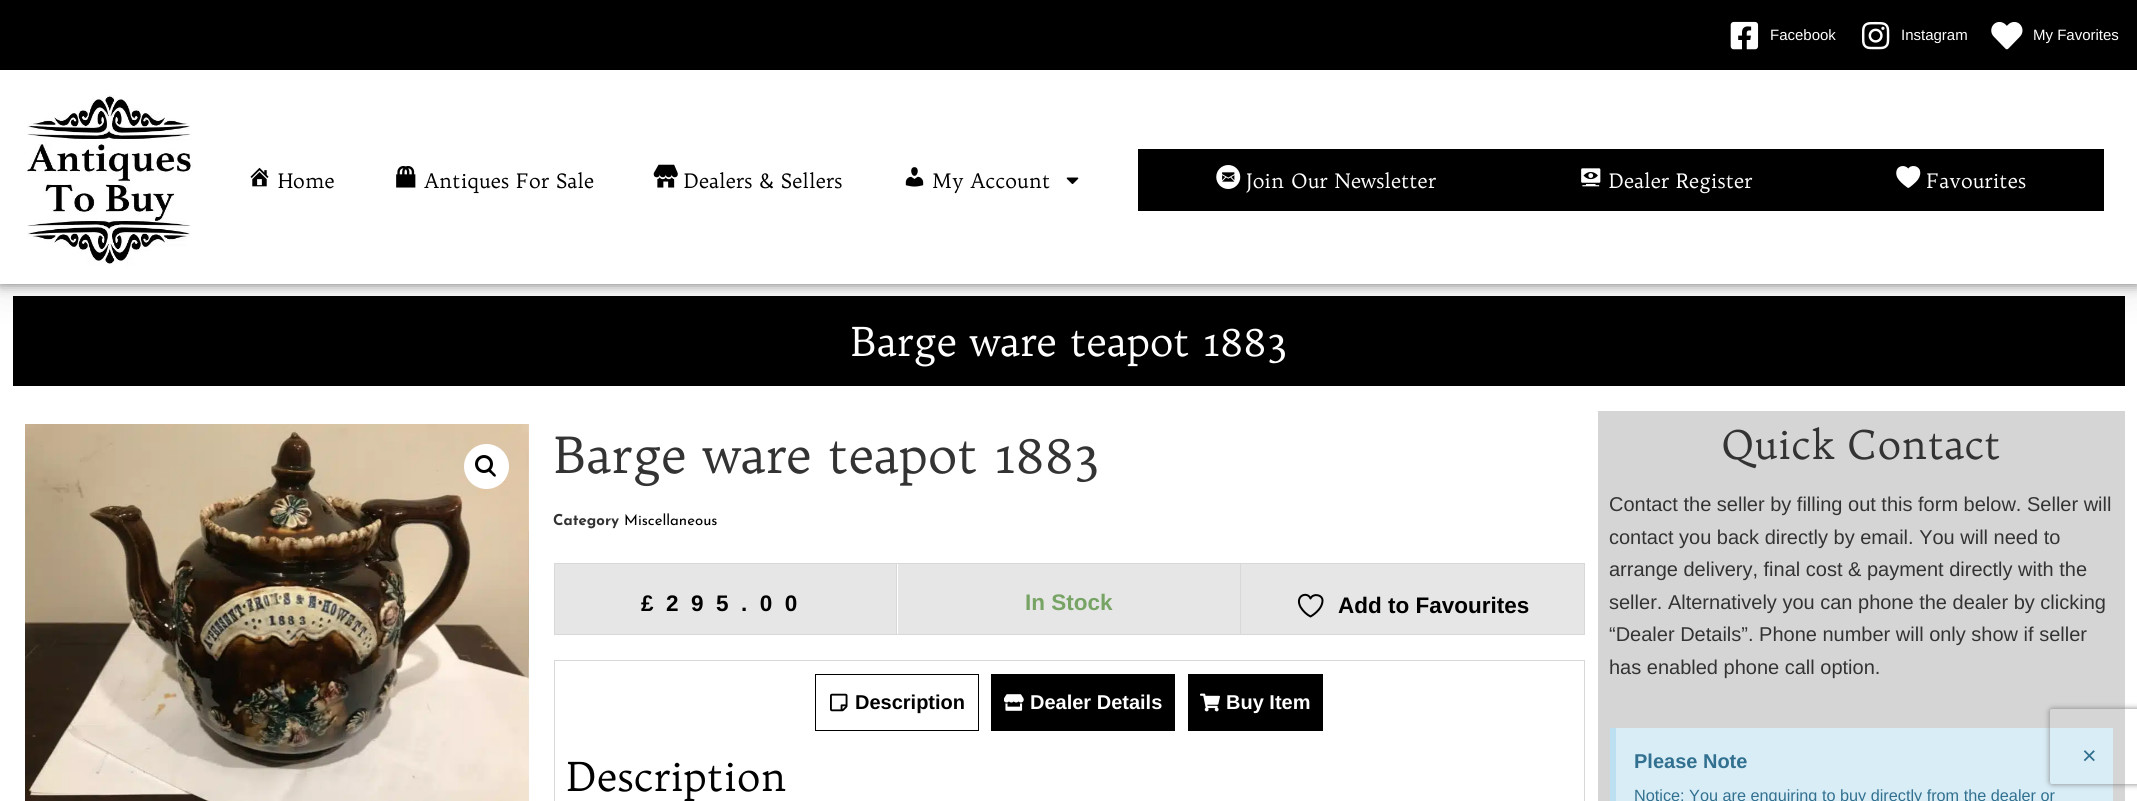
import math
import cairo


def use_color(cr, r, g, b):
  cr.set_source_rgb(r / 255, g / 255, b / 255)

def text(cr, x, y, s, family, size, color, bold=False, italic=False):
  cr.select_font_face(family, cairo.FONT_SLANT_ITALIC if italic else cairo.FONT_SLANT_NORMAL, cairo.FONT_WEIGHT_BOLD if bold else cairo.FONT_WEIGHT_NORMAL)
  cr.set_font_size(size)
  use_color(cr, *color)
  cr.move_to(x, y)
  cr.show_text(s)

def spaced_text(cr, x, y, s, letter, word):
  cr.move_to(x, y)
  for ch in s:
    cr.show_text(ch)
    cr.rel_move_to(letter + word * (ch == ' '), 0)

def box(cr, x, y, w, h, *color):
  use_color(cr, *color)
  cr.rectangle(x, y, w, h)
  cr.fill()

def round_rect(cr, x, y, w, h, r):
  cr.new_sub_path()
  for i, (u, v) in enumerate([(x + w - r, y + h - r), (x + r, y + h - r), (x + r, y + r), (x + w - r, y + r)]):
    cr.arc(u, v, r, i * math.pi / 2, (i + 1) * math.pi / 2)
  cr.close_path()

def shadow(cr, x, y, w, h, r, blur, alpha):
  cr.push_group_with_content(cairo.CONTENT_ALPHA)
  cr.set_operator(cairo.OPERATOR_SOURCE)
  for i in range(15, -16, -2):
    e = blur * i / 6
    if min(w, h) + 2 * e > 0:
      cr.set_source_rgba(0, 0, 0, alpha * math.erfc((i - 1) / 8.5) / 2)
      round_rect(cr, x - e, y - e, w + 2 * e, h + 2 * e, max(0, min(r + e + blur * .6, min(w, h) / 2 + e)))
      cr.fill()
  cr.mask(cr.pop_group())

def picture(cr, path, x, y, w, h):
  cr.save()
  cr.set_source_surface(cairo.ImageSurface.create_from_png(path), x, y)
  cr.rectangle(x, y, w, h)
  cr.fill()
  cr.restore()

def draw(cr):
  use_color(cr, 255, 255, 255)
  cr.paint()
  box(cr, 0, 0, 2137, 70, 0, 0, 0)
  picture(cr, "img_01.png", 1730, 21, 29, 29)
  picture(cr, "img_02.png", 1861, 21, 29, 29)
  picture(cr, "img_03.png", 1991, 22, 32, 28)
  box(cr, 13, 296, 2112, 90, 0, 0, 0)
  use_color(cr, 0, 0, 0)
  shadow(cr, 0, 76, 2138, 214, 0, 19, 0.1)
  shadow(cr, 0, 70, 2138, 214, 0, 6, 0.5)
  box(cr, 0, 70, 2137, 214, 255, 255, 255)
  picture(cr, "img_04.png", 27, 95, 166, 170)
  picture(cr, "img_05.png", 250, 167, 19, 20)
  picture(cr, "img_06.png", 396, 166, 20, 22)
  picture(cr, "img_07.png", 653, 164, 25, 24)
  picture(cr, "img_08.png", 905, 167, 19, 20)
  picture(cr, "img_09.png", 1066, 177, 13, 7)
  box(cr, 1138, 149, 966, 62, 0, 0, 0)
  picture(cr, "img_10.png", 1216, 165, 25, 24)
  picture(cr, "img_11.png", 1581, 168, 20, 19)
  picture(cr, "img_12.png", 1896, 166, 25, 22)
  picture(cr, "img_14.png", 528, 424, 1, 377)
  picture(cr, "img_13.png", 25, 424, 504, 377)
  use_color(cr, 255, 255, 255)
  cr.arc(486.5, 466.5, 22.5, 0, 2 * math.pi)
  cr.fill()
  cr.arc(484, 464, 7.5, 0, 2 * math.pi)
  use_color(cr, 0, 0, 0)
  cr.set_line_width(3)
  cr.stroke()
  cr.new_path()
  cr.move_to(488.5, 469)
  cr.curve_to(490, 468, 492, 471, 493, 472)
  cr.curve_to(493.5, 472.5, 497, 475, 495.5, 476.5)
  cr.curve_to(494, 477.5, 492, 474.5, 491, 473.5)
  cr.curve_to(490, 473, 487, 470.5, 488.5, 469)
  cr.close_path()
  cr.fill()
  cr.rectangle(554.5, 563.5, 1030, 71)
  use_color(cr, 216, 216, 216)
  cr.set_line_width(1)
  cr.stroke()
  box(cr, 555, 564, 341, 70, 230, 230, 230)
  box(cr, 898, 564, 342, 70, 230, 230, 230)
  box(cr, 1240, 564, 1, 70, 216, 216, 216)
  box(cr, 896, 564, 1, 70, 216, 216, 216)
  box(cr, 1241, 564, 343, 70, 230, 230, 230)
  cr.new_path()
  cr.move_to(1322.5, 600.5)
  cr.curve_to(1322.5, 594.5, 1313, 593, 1310.5, 598.5)
  cr.curve_to(1307.5, 591, 1294.5, 595.5, 1300.5, 607)
  cr.curve_to(1303, 611, 1306.5, 614.5, 1310.5, 616.5)
  cr.curve_to(1310.5, 616.5, 1322.5, 610, 1322.5, 600.5)
  cr.close_path()
  use_color(cr, 0, 0, 0)
  cr.set_line_width(2)
  cr.set_line_cap(cairo.LINE_CAP_ROUND)
  cr.set_line_join(cairo.LINE_JOIN_ROUND)
  cr.stroke()
  cr.rectangle(554.5, 660.5, 1030, 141)
  use_color(cr, 216, 216, 216)
  cr.set_line_width(1)
  cr.set_line_cap(cairo.LINE_CAP_BUTT)
  cr.set_line_join(cairo.LINE_JOIN_MITER)
  cr.stroke()
  cr.rectangle(815.5, 674.5, 163, 56)
  use_color(cr, 0, 0, 0)
  cr.stroke()
  picture(cr, "img_15.png", 830, 693, 18, 19)
  box(cr, 991, 674, 184, 57, 0, 0, 0)
  picture(cr, "img_16.png", 1004, 694, 20, 17)
  box(cr, 1188, 674, 135, 57, 0, 0, 0)
  picture(cr, "img_17.png", 1200, 693, 20, 19)
  box(cr, 1598, 411, 527, 390, 213, 213, 213)
  box(cr, 1616, 728, 497, 73, 217, 237, 247)
  box(cr, 1610, 728, 6, 73, 188, 223, 241)
  cr.save()
  cr.set_fill_rule(cairo.FILL_RULE_EVEN_ODD)
  cr.new_path()
  cr.move_to(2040, 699)
  cr.line_to(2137, 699)
  cr.line_to(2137, 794)
  cr.line_to(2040, 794)
  cr.close_path()
  cr.move_to(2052.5, 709)
  cr.line_to(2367.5, 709)
  cr.curve_to(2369, 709, 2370, 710, 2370, 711.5)
  cr.line_to(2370, 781.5)
  cr.curve_to(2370, 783, 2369, 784, 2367.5, 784)
  cr.line_to(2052.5, 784)
  cr.curve_to(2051, 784, 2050, 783, 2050, 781.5)
  cr.line_to(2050, 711.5)
  cr.curve_to(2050, 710, 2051, 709, 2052.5, 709)
  cr.close_path()
  cr.clip()
  use_color(cr, 128, 128, 128)
  shadow(cr, 2050, 709, 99, 75, 2.5, 3, 1)
  cr.restore()
  text(cr, 1770, 40, "Facebook", "Liberation Sans", 15, (255, 255, 255))
  text(cr, 1901, 40, "Instagram", "Liberation Sans", 15, (255, 255, 255))
  text(cr, 2033, 40, "My Favorites", "Liberation Sans", 15, (255, 255, 255))
  text(cr, 278, 188, "Home", "Trykker", 20, (0, 0, 0))
  text(cr, 424, 188, "Antiques For Sale", "Trykker", 20, (0, 0, 0))
  text(cr, 684, 188, "Dealers & Sellers", "Trykker", 20, (0, 0, 0))
  text(cr, 932, 188, "My Account", "Trykker", 20, (0, 0, 0))
  text(cr, 1246, 188, "Join Our Newsletter", "Trykker", 20, (255, 255, 255))
  text(cr, 1609, 188, "Dealer Register", "Trykker", 20, (255, 255, 255))
  text(cr, 1926, 188, "Favourites", "Trykker", 20, (255, 255, 255))
  text(cr, 850, 356, "Barge ware teapot 1883", "Trykker", 40, (255, 255, 255))
  text(cr, 553, 473, "Barge ware teapot 1883", "Trykker", 50, (51, 51, 51))
  text(cr, 553, 525, "Category", "Josefin Sans", 15, (51, 51, 51), bold=True)
  text(cr, 624, 525, "Miscellaneous", "Josefin Sans", 15, (0, 0, 0))
  cr.select_font_face("Liberation Sans", cairo.FONT_SLANT_NORMAL, cairo.FONT_WEIGHT_BOLD)
  cr.set_font_size(22.5)
  spaced_text(cr, 641, 611, "£295.00", 12.5, 0)
  text(cr, 1025, 610, "In Stock", "Liberation Sans", 22.5, (119, 164, 100), bold=True)
  text(cr, 1338, 613, "Add to Favourites", "Liberation Sans", 22.5, (0, 0, 0), bold=True)
  text(cr, 855, 709, "Description", "Liberation Sans", 20, (0, 0, 0), bold=True)
  text(cr, 1030, 709, "Dealer Details", "Liberation Sans", 20, (255, 255, 255), bold=True)
  text(cr, 1226, 709, "Buy Item", "Liberation Sans", 20, (255, 255, 255), bold=True)
  text(cr, 567, 791, "Description", "Trykker", 40, (0, 0, 0))
  text(cr, 1721, 459, "Quick Contact", "Trykker", 40, (51, 51, 51))
  text(cr, 1609, 511, "Contact the seller by filling out this form below. Seller will", "Liberation Sans", 20, (51, 51, 51))
  text(cr, 1609, 544, "contact you back directly by email. You will need to", "Liberation Sans", 20, (51, 51, 51))
  text(cr, 1609, 576, "arrange delivery, final cost & payment directly with the", "Liberation Sans", 20, (51, 51, 51))
  text(cr, 1609, 609, "seller. Alternatively you can phone the dealer by clicking", "Liberation Sans", 20, (51, 51, 51))
  text(cr, 1609, 641, "“Dealer Details”. Phone number will only show if seller", "Liberation Sans", 20, (51, 51, 51))
  text(cr, 1609, 674, "has enabled phone call option.", "Liberation Sans", 20, (51, 51, 51))
  text(cr, 1634, 768, "Please Note", "Liberation Sans", 20, (49, 112, 143), bold=True)
  text(cr, 2082, 764, "×", "Liberation Sans", 25, (49, 112, 143))
  text(cr, 1634, 801, "Notice: You are enquiring to buy directly from the dealer or", "Liberation Sans", 16.25, (49, 112, 143))


surface = cairo.ImageSurface(cairo.FORMAT_RGB24, 2137, 801)
cr = cairo.Context(surface)
options = cairo.FontOptions()
options.set_hint_metrics(cairo.HINT_METRICS_OFF)
options.set_hint_style(cairo.HINT_STYLE_NONE)
cr.set_font_options(options)
cr.set_miter_limit(4)
draw(cr)
surface.write_to_png("out.png")
